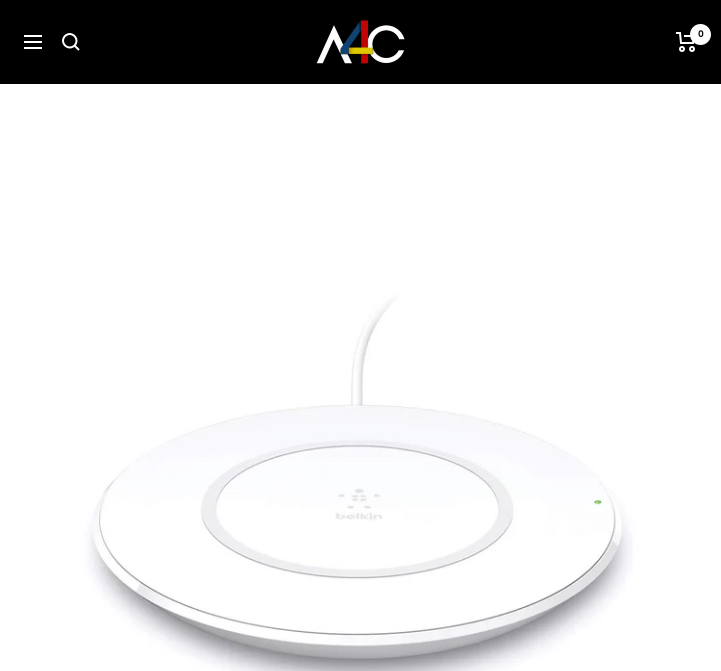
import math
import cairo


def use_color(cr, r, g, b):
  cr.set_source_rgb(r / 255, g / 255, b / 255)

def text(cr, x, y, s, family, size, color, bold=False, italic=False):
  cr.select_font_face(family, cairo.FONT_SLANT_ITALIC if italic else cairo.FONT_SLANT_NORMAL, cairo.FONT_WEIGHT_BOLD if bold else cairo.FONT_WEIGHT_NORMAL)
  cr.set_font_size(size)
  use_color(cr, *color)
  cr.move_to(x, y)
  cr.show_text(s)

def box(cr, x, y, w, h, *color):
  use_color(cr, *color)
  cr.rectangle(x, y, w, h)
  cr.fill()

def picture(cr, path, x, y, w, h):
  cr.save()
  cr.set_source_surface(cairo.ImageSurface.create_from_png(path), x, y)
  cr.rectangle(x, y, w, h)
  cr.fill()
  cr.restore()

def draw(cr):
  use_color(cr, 255, 255, 255)
  cr.paint()
  box(cr, 0, 0, 721, 84, 0, 0, 0)
  cr.new_path()
  cr.move_to(24, 36)
  cr.line_to(42, 36)
  cr.move_to(24, 48)
  cr.line_to(42, 48)
  cr.close_path()
  cr.move_to(24, 42)
  cr.line_to(42, 42)
  cr.close_path()
  cr.move_to(74.5, 45.5)
  cr.curve_to(80.5, 39, 71.5, 30, 65, 36)
  cr.curve_to(59, 42.5, 68, 51.5, 74.5, 45.5)
  cr.close_path()
  cr.move_to(74.5, 45.5)
  cr.line_to(79, 50)
  use_color(cr, 255, 255, 255)
  cr.stroke()
  picture(cr, "img_01.png", 316, 20, 89, 44)
  cr.new_path()
  cr.move_to(676, 33)
  cr.line_to(680, 33)
  cr.line_to(681, 43)
  cr.line_to(693, 43)
  cr.line_to(695, 36)
  cr.line_to(684, 36)
  cr.stroke()
  cr.arc(682, 49, 2, 0, 2 * math.pi)
  cr.stroke()
  cr.arc(692, 49, 2, 0, 2 * math.pi)
  cr.stroke()
  cr.arc(700.5, 34.5, 10.5, 0, 2 * math.pi)
  cr.fill()
  picture(cr, "img_02.png", 24, 108, 673, 563)
  text(cr, 698, 37, "0", "Poppins SemiBold", 9, (0, 0, 0))


surface = cairo.ImageSurface(cairo.FORMAT_RGB24, 721, 671)
cr = cairo.Context(surface)
options = cairo.FontOptions()
options.set_hint_metrics(cairo.HINT_METRICS_OFF)
options.set_hint_style(cairo.HINT_STYLE_NONE)
cr.set_font_options(options)
cr.set_miter_limit(4)
draw(cr)
surface.write_to_png("out.png")
